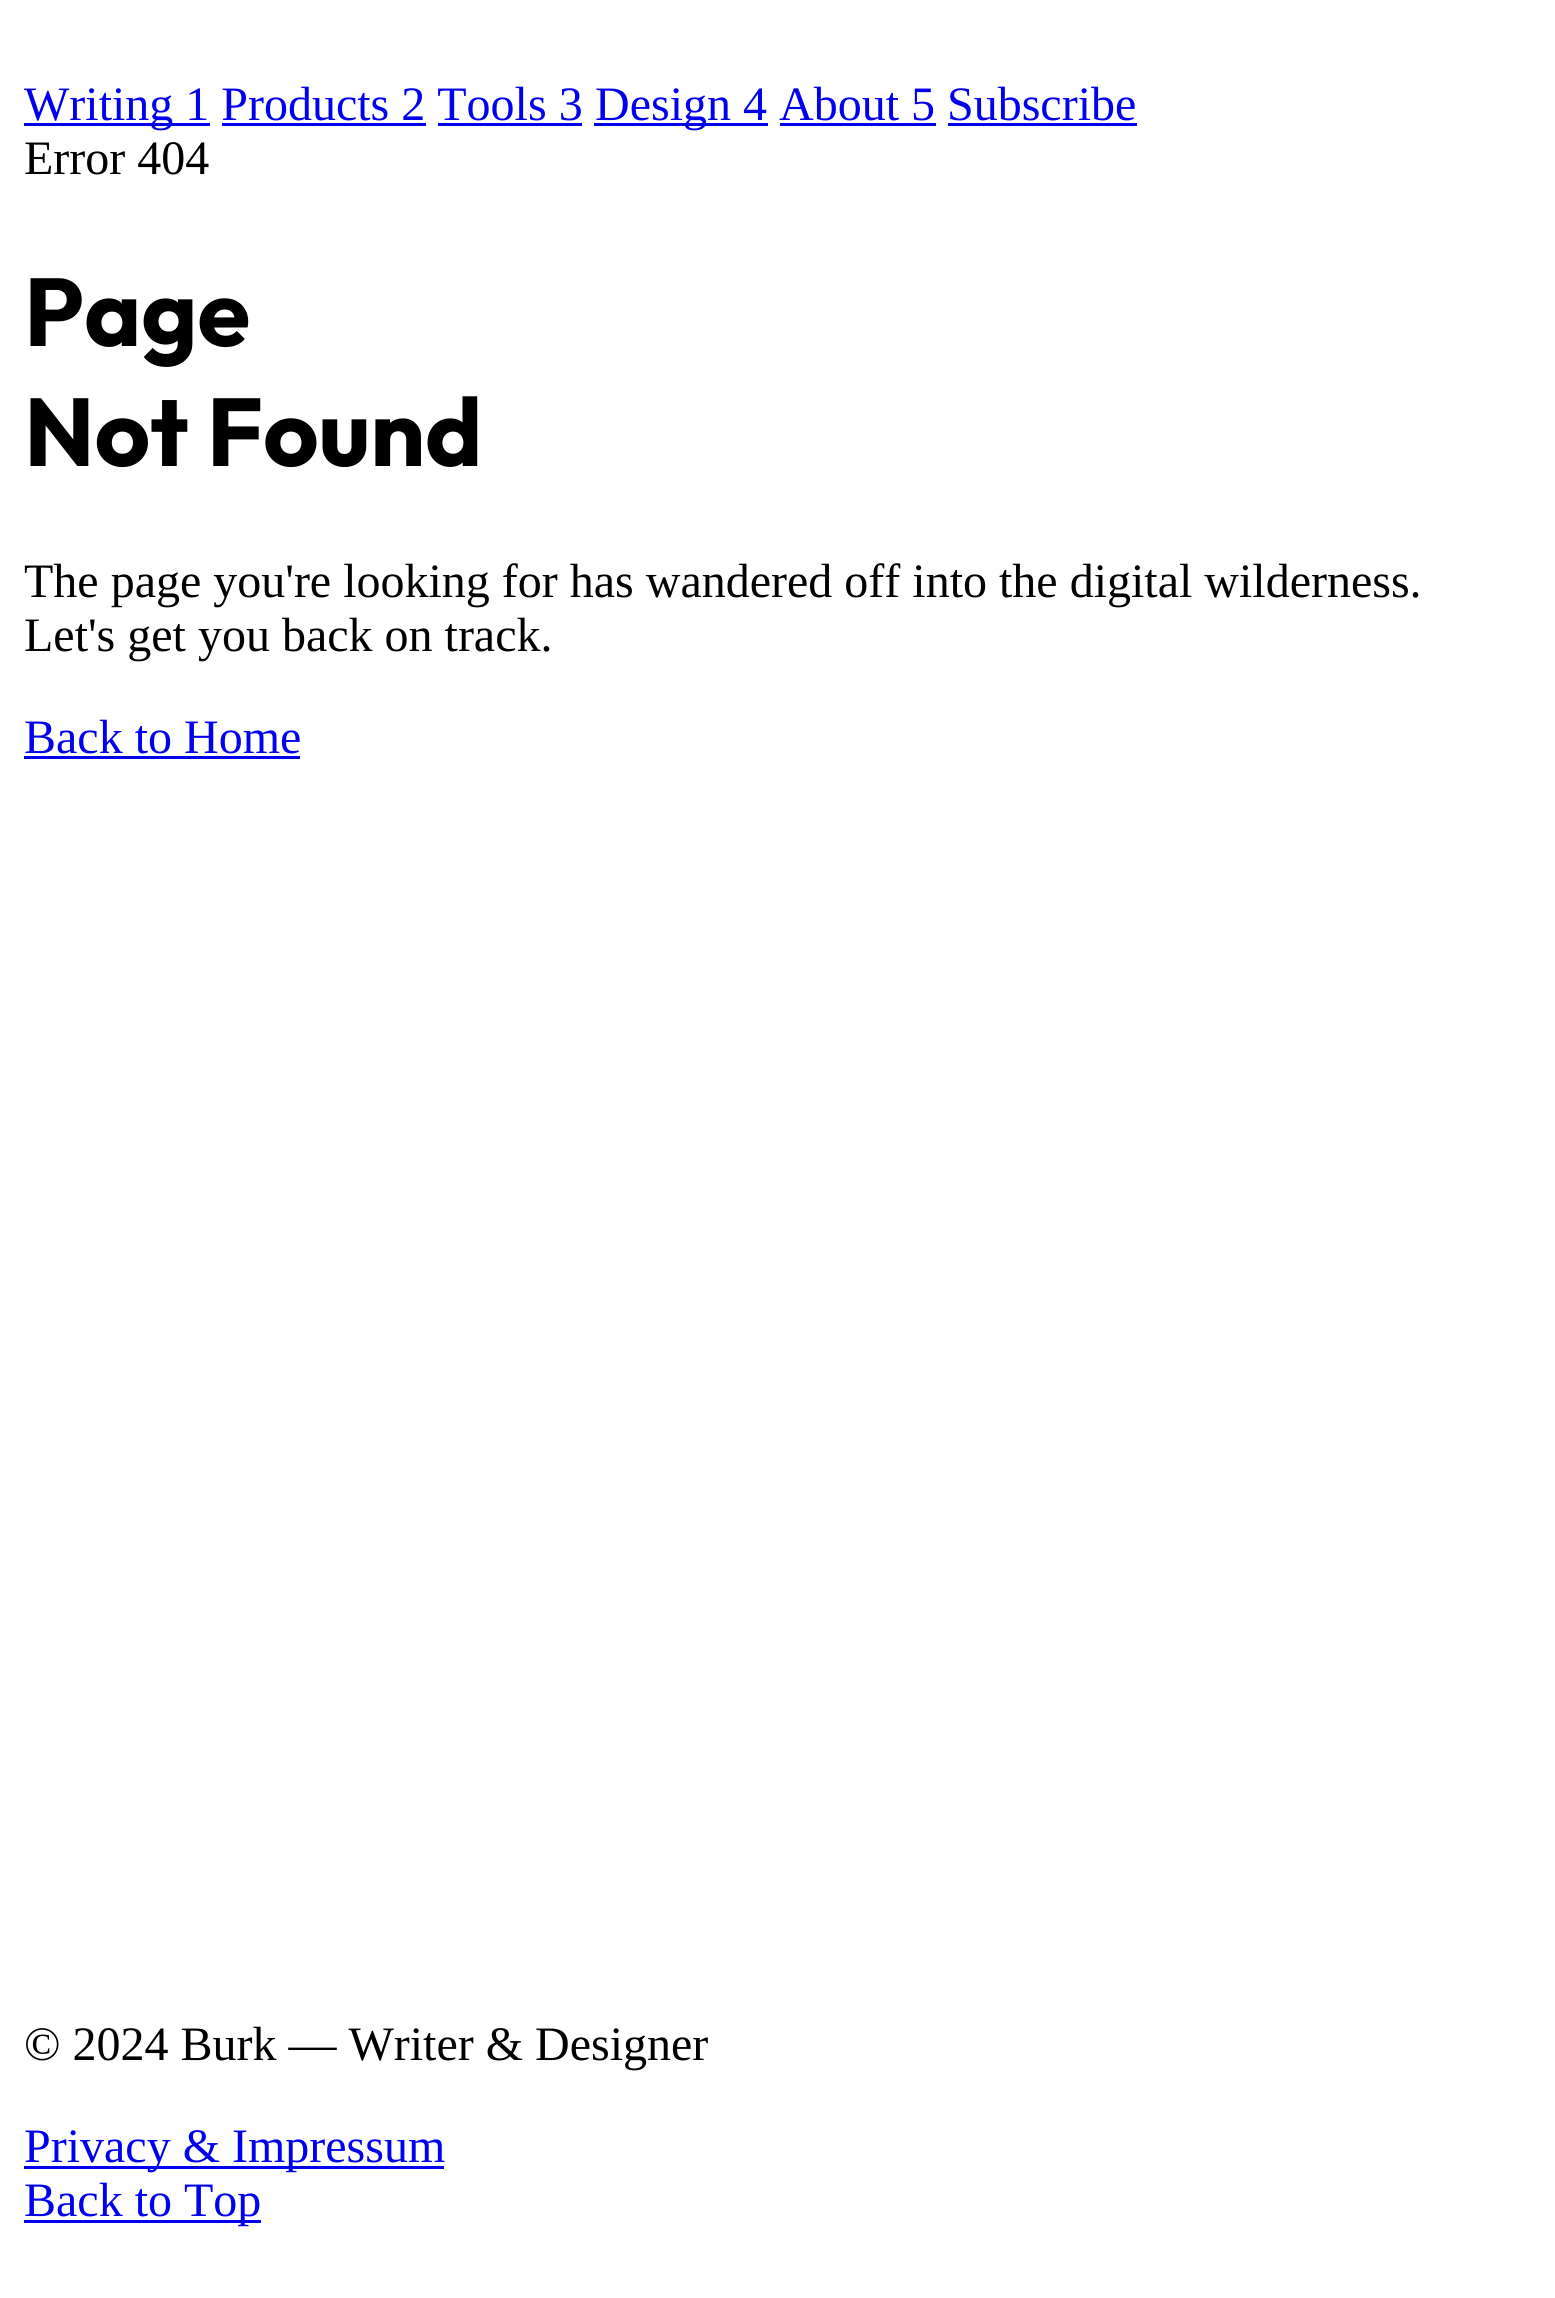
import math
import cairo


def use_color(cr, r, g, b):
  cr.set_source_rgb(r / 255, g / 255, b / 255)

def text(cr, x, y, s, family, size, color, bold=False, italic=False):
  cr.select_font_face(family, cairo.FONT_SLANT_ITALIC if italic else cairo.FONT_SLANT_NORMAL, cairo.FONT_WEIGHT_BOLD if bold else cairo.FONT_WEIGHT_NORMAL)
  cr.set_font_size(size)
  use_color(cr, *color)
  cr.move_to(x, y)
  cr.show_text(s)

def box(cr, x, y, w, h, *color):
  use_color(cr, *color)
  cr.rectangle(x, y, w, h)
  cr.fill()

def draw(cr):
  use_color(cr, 255, 255, 255)
  cr.paint()
  box(cr, 24, 123, 186, 3, 0, 0, 238)
  box(cr, 594, 123, 174, 3, 0, 0, 238)
  box(cr, 222, 123, 204, 3, 0, 0, 238)
  box(cr, 438, 123, 144, 3, 0, 0, 238)
  box(cr, 780, 123, 156, 3, 0, 0, 238)
  box(cr, 948, 123, 189, 3, 0, 0, 238)
  box(cr, 24, 756, 276, 3, 0, 0, 238)
  box(cr, 24, 2166, 420, 3, 0, 0, 238)
  box(cr, 24, 2220, 237, 3, 0, 0, 238)
  text(cr, 24, 120, "Writing 1 Products 2 Tools 3", "Liberation Serif", 48, (0, 0, 238))
  text(cr, 595, 120, "Design 4 About 5 Subscribe", "Liberation Serif", 48, (0, 0, 238))
  text(cr, 24, 174, "Error 404", "Liberation Serif", 48, (0, 0, 0))
  text(cr, 24, 346, "Page", "Outfit", 96, (0, 0, 0), bold=True)
  text(cr, 24, 466, "Not Found", "Outfit", 96, (0, 0, 0), bold=True)
  text(cr, 24, 597, "The page you're looking for has wandered off into the digital wilderness.", "Liberation Serif", 48, (0, 0, 0))
  text(cr, 24, 651, "Let's get you back on track.", "Liberation Serif", 48, (0, 0, 0))
  text(cr, 24, 753, "Back to Home", "Liberation Serif", 48, (0, 0, 238))
  text(cr, 24, 2060, "© 2024 Burk — Writer & Designer", "Liberation Serif", 48, (0, 0, 0))
  text(cr, 24, 2162, "Privacy & Impressum", "Liberation Serif", 48, (0, 0, 238))
  text(cr, 24, 2216, "Back to Top", "Liberation Serif", 48, (0, 0, 238))


surface = cairo.ImageSurface(cairo.FORMAT_RGB24, 1555, 2298)
cr = cairo.Context(surface)
options = cairo.FontOptions()
options.set_hint_metrics(cairo.HINT_METRICS_OFF)
options.set_hint_style(cairo.HINT_STYLE_NONE)
cr.set_font_options(options)
cr.set_miter_limit(4)
draw(cr)
surface.write_to_png("out.png")
